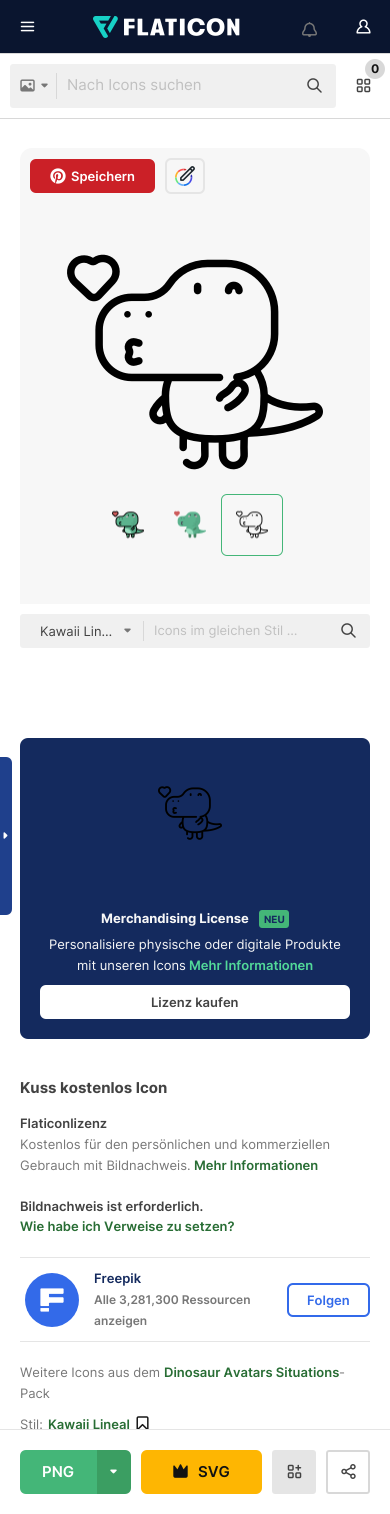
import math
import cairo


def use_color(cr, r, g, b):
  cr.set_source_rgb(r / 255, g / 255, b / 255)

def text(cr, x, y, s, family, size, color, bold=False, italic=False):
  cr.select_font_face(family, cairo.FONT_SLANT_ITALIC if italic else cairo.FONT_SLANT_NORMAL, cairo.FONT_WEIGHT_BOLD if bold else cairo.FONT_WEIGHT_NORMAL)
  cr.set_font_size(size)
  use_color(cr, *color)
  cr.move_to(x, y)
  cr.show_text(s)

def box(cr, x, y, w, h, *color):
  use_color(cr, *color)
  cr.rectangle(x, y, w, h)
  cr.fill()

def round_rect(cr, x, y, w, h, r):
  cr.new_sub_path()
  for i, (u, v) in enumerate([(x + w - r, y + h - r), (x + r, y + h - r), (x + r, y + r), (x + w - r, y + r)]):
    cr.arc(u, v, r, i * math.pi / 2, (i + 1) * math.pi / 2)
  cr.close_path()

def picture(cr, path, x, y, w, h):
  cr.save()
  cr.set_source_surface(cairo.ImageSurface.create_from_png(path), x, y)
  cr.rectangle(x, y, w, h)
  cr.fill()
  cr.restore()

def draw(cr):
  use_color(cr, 255, 255, 255)
  cr.paint()
  use_color(cr, 31, 64, 140)
  cr.new_path()
  cr.move_to(0, 757)
  cr.line_to(6, 757)
  cr.curve_to(9.5, 757, 12, 759.5, 12, 763)
  cr.line_to(12, 909)
  cr.curve_to(12, 912.5, 9.5, 915, 6, 915)
  cr.line_to(0, 915)
  cr.close_path()
  cr.fill()
  picture(cr, "img_01.png", 3, 832, 5, 7)
  box(cr, 0, 0, 390, 53, 10, 21, 47)
  picture(cr, "img_02.png", 20, 21, 15, 11)
  picture(cr, "img_03.png", 93, 16, 147, 22)
  picture(cr, "img_04.png", 302, 22, 15, 15)
  picture(cr, "img_05.png", 356, 19, 15, 15)
  cr.rectangle(-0.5, 53.5, 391, 65)
  use_color(cr, 216, 216, 216)
  cr.set_line_width(1)
  cr.stroke()
  picture(cr, "img_06.png", 356, 78, 15, 15)
  cr.arc(375, 69, 10, 0, 2 * math.pi)
  cr.fill()
  use_color(cr, 240, 240, 240)
  round_rect(cr, 10, 64, 326, 44, 3)
  cr.fill()
  picture(cr, "img_07.png", 20, 79, 15, 13)
  picture(cr, "img_08.png", 41, 83, 7, 5)
  box(cr, 56, 73, 1, 26, 216, 216, 216)
  picture(cr, "img_09.png", 307, 78, 15, 15)
  use_color(cr, 247, 247, 247)
  round_rect(cr, 20, 148, 350, 510, 12)
  cr.fill()
  use_color(cr, 203, 32, 39)
  round_rect(cr, 30, 159, 125, 34, 6)
  cr.fill()
  picture(cr, "img_10.png", 50, 168, 16, 16)
  round_rect(cr, 166, 159, 38, 34, 5)
  use_color(cr, 229, 229, 229)
  cr.set_line_width(2)
  cr.stroke()
  picture(cr, "img_11.png", 175, 166, 20, 20)
  picture(cr, "img_12.png", 67, 254, 256, 216)
  picture(cr, "img_13.png", 112, 510, 32, 29)
  picture(cr, "img_14.png", 174, 510, 32, 29)
  round_rect(cr, 221.5, 494.5, 61, 61, 5.5)
  use_color(cr, 68, 182, 120)
  cr.set_line_width(1)
  cr.stroke()
  picture(cr, "img_15.png", 236, 510, 32, 29)
  box(cr, 20, 604, 350, 54, 255, 255, 255)
  use_color(cr, 240, 240, 240)
  round_rect(cr, 20, 614, 350, 34, 3)
  cr.fill()
  picture(cr, "img_08.png", 124, 628, 7, 5)
  box(cr, 143, 621, 1, 20, 216, 216, 216)
  picture(cr, "img_09.png", 341, 623, 15, 15)
  use_color(cr, 20, 42, 94)
  round_rect(cr, 20, 738, 350, 301, 8)
  cr.fill()
  picture(cr, "img_16.png", 158, 786, 64, 54)
  use_color(cr, 68, 182, 120)
  round_rect(cr, 259, 910, 30, 18, 3)
  cr.fill()
  use_color(cr, 255, 255, 255)
  round_rect(cr, 40, 985, 310, 34, 6)
  cr.fill()
  box(cr, 20, 1257, 350, 1, 229, 229, 229)
  picture(cr, "img_17.png", 25, 1273, 54, 54)
  round_rect(cr, 288, 1284, 81, 32, 5)
  use_color(cr, 51, 106, 234)
  cr.set_line_width(2)
  cr.stroke()
  box(cr, 20, 1341, 350, 1, 229, 229, 229)
  picture(cr, "img_18.png", 136, 1416, 13, 13)
  use_color(cr, 68, 182, 120)
  cr.new_path()
  cr.move_to(26, 1450)
  cr.line_to(97, 1450)
  cr.line_to(97, 1494)
  cr.line_to(26, 1494)
  cr.curve_to(22.5, 1494, 20, 1491.5, 20, 1488)
  cr.line_to(20, 1456)
  cr.curve_to(20, 1452.5, 22.5, 1450, 26, 1450)
  cr.close_path()
  cr.fill()
  use_color(cr, 59, 158, 98)
  cr.new_path()
  cr.move_to(97, 1450)
  cr.line_to(125, 1450)
  cr.curve_to(128.5, 1450, 131, 1452.5, 131, 1456)
  cr.line_to(131, 1488)
  cr.curve_to(131, 1491.5, 128.5, 1494, 125, 1494)
  cr.line_to(97, 1494)
  cr.close_path()
  cr.fill()
  picture(cr, "img_19.png", 110, 1469, 7, 5)
  use_color(cr, 254, 182, 2)
  round_rect(cr, 141, 1450, 121, 44, 6)
  cr.fill()
  picture(cr, "img_20.png", 173, 1464, 15, 14)
  use_color(cr, 229, 229, 229)
  round_rect(cr, 272, 1450, 44, 44, 3)
  cr.fill()
  picture(cr, "img_21.png", 287, 1464, 15, 15)
  round_rect(cr, 327, 1451, 42, 42, 2)
  use_color(cr, 216, 216, 216)
  cr.stroke()
  picture(cr, "img_22.png", 341, 1464, 15, 15)
  text(cr, 371, 73, "0", "Inter", 12, (18, 18, 18), bold=True)
  text(cr, 67, 90, "Nach Icons suchen", "Inter", 15, (192, 192, 192))
  text(cr, 71, 181, "Speichern", "Inter SemiBold", 13, (255, 255, 255))
  text(cr, 40, 636, "Kawaii Lin…", "Inter", 13, (66, 66, 66))
  text(cr, 154, 635, "Icons im gleichen Stil …", "Inter", 13, (192, 192, 192))
  text(cr, 101, 923, "Merchandising License", "Inter", 13, (247, 247, 247), bold=True)
  text(cr, 264, 923, "NEU", "Inter", 10, (20, 42, 94), bold=True)
  text(cr, 49, 949, "Personalisiere physische oder digitale Produkte", "Inter", 13, (247, 247, 247))
  text(cr, 77, 970, "mit unseren Icons", "Inter", 13, (247, 247, 247))
  text(cr, 189, 970, "Mehr Informationen", "Inter SemiBold", 13, (82, 217, 153))
  text(cr, 151, 1007, "Lizenz kaufen", "Inter SemiBold", 13, (66, 66, 66))
  text(cr, 20, 1093, "Kuss kostenlos Icon", "Inter", 15, (66, 66, 66), bold=True)
  text(cr, 20, 1128, "Flaticonlizenz", "Inter SemiBold", 13, (66, 66, 66))
  text(cr, 20, 1149, "Kostenlos für den persönlichen und kommerziellen", "Inter", 13, (119, 119, 119))
  text(cr, 20, 1170, "Gebrauch mit Bildnachweis.", "Inter", 13, (119, 119, 119))
  text(cr, 194, 1170, "Mehr Informationen", "Inter SemiBold", 13, (40, 109, 52))
  text(cr, 20, 1211, "Bildnachweis ist erforderlich.", "Inter SemiBold", 13, (66, 66, 66))
  text(cr, 20, 1231, "Wie habe ich Verweise zu setzen?", "Inter SemiBold", 13, (40, 109, 52))
  text(cr, 94, 1283, "Freepik", "Inter SemiBold", 13, (20, 42, 94))
  text(cr, 94, 1304, "Alle 3,281,300 Ressourcen", "Inter SemiBold", 12, (119, 119, 119))
  text(cr, 94, 1325, "anzeigen", "Inter SemiBold", 12, (119, 119, 119))
  text(cr, 307, 1305, "Folgen", "Inter SemiBold", 13, (51, 106, 234))
  text(cr, 20, 1377, "Weitere Icons aus dem", "Inter", 13, (119, 119, 119))
  text(cr, 164, 1377, "Dinosaur Avatars Situations", "Inter SemiBold", 13, (40, 109, 52))
  text(cr, 339, 1377, "-", "Inter", 13, (119, 119, 119))
  text(cr, 20, 1398, "Pack", "Inter", 13, (119, 119, 119))
  text(cr, 20, 1429, "Stil:", "Inter", 13, (119, 119, 119))
  text(cr, 48, 1429, "Kawaii Lineal", "Inter SemiBold", 13, (40, 109, 52))
  box(cr, 0, 1429, 390, 1, 229, 229, 229)
  text(cr, 42, 1477, "PNG", "Inter SemiBold", 15, (255, 255, 255))
  text(cr, 198, 1477, "SVG", "Inter SemiBold", 15, (18, 18, 18))


surface = cairo.ImageSurface(cairo.FORMAT_RGB24, 390, 1514)
cr = cairo.Context(surface)
options = cairo.FontOptions()
options.set_hint_metrics(cairo.HINT_METRICS_OFF)
options.set_hint_style(cairo.HINT_STYLE_NONE)
cr.set_font_options(options)
cr.set_miter_limit(4)
draw(cr)
surface.write_to_png("out.png")
